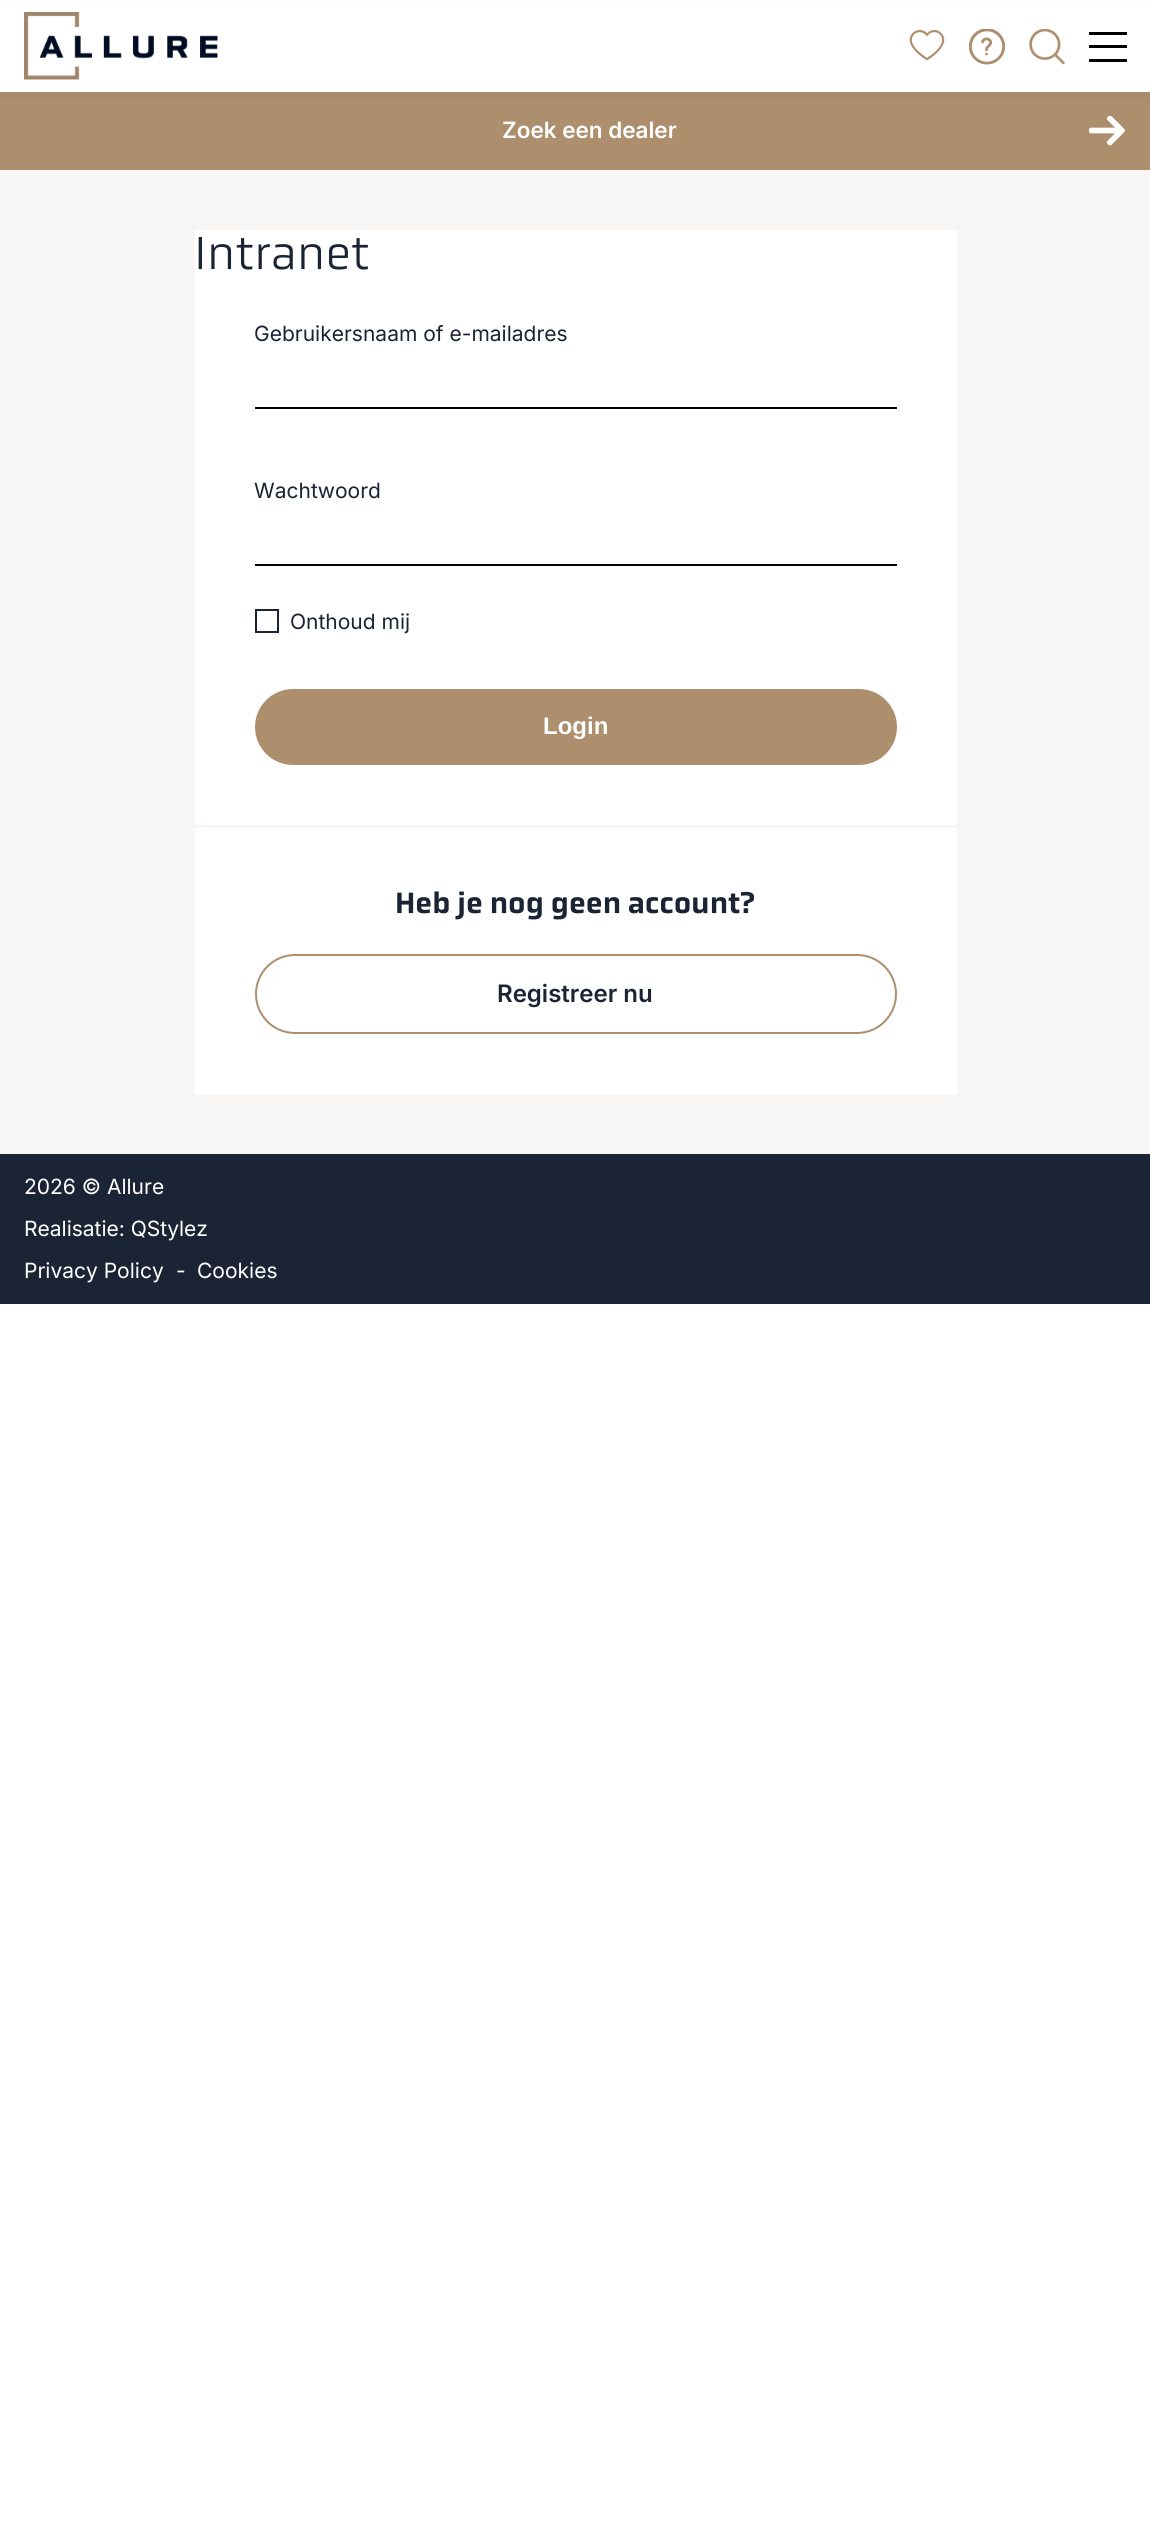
import math
import cairo


def use_color(cr, r, g, b):
  cr.set_source_rgb(r / 255, g / 255, b / 255)

def text(cr, x, y, s, family, size, color, bold=False, italic=False):
  cr.select_font_face(family, cairo.FONT_SLANT_ITALIC if italic else cairo.FONT_SLANT_NORMAL, cairo.FONT_WEIGHT_BOLD if bold else cairo.FONT_WEIGHT_NORMAL)
  cr.set_font_size(size)
  use_color(cr, *color)
  cr.move_to(x, y)
  cr.show_text(s)

def box(cr, x, y, w, h, *color):
  use_color(cr, *color)
  cr.rectangle(x, y, w, h)
  cr.fill()

def round_rect(cr, x, y, w, h, r):
  cr.new_sub_path()
  for i, (u, v) in enumerate([(x + w - r, y + h - r), (x + r, y + h - r), (x + r, y + r), (x + w - r, y + r)]):
    cr.arc(u, v, r, i * math.pi / 2, (i + 1) * math.pi / 2)
  cr.close_path()

def shadow(cr, x, y, w, h, r, blur, alpha):
  cr.push_group_with_content(cairo.CONTENT_ALPHA)
  cr.set_operator(cairo.OPERATOR_SOURCE)
  for i in range(15, -16, -2):
    e = blur * i / 6
    if min(w, h) + 2 * e > 0:
      cr.set_source_rgba(0, 0, 0, alpha * math.erfc((i - 1) / 8.5) / 2)
      round_rect(cr, x - e, y - e, w + 2 * e, h + 2 * e, max(0, min(r + e + blur * .6, min(w, h) / 2 + e)))
      cr.fill()
  cr.mask(cr.pop_group())

def picture(cr, path, x, y, w, h):
  cr.save()
  cr.set_source_surface(cairo.ImageSurface.create_from_png(path), x, y)
  cr.rectangle(x, y, w, h)
  cr.fill()
  cr.restore()

def draw(cr):
  use_color(cr, 255, 255, 255)
  cr.paint()
  box(cr, 0, 92, 1150, 78, 173, 143, 110)
  use_color(cr, 0, 0, 0)
  shadow(cr, 0, 5, 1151, 91, 0, 4.5, 0.05)
  box(cr, 0, 1, 1150, 91, 255, 255, 255)
  picture(cr, "img_01.png", 24, 12, 194, 68)
  picture(cr, "img_02.png", 909, 30, 36, 31)
  picture(cr, "img_03.png", 969, 29, 36, 36)
  picture(cr, "img_04.png", 1029, 29, 36, 36)
  box(cr, 1089, 32, 38, 3, 0, 0, 0)
  box(cr, 1089, 45, 38, 3, 0, 0, 0)
  box(cr, 1089, 59, 38, 3, 0, 0, 0)
  picture(cr, "img_05.png", 1089, 116, 36, 30)
  box(cr, 0, 170, 1150, 984, 247, 246, 245)
  box(cr, 195, 230, 762, 864, 255, 255, 255)
  box(cr, 255, 407, 642, 2, 0, 0, 0)
  box(cr, 255, 564, 642, 2, 0, 0, 0)
  cr.rectangle(256, 610, 22, 22)
  use_color(cr, 27, 36, 53)
  cr.stroke()
  use_color(cr, 173, 143, 110)
  round_rect(cr, 255, 689, 642, 76, 38)
  cr.fill()
  box(cr, 195, 825, 762, 3, 247, 246, 245)
  round_rect(cr, 256, 955, 640, 78, 39)
  use_color(cr, 173, 143, 110)
  cr.stroke()
  box(cr, 0, 1154, 1150, 150, 27, 36, 53)
  text(cr, 502, 138, "Zoek een dealer", "Inter SemiBold", 22.5, (255, 255, 255))
  text(cr, 194, 269, "Intranet", "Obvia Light", 48, (27, 36, 53))
  text(cr, 254, 341, "Gebruikersnaam of e-mailadres", "Inter", 21, (27, 36, 53))
  text(cr, 254, 498, "Wachtwoord", "Inter", 21, (27, 36, 53))
  text(cr, 290, 629, "Onthoud mij", "Inter", 21, (27, 36, 53))
  text(cr, 543, 734, "Login", "Liberation Sans", 24, (255, 255, 255), bold=True)
  text(cr, 395, 913, "Heb je nog geen account?", "Obvia Medium", 30, (27, 36, 53))
  text(cr, 497, 1002, "Registreer nu", "Inter SemiBold", 24, (27, 36, 53))
  text(cr, 24, 1194, "2026 © Allure", "Inter", 21, (255, 255, 255))
  text(cr, 24, 1236, "Realisatie: QStylez", "Inter", 21, (255, 255, 255))
  text(cr, 24, 1278, "Privacy Policy", "Inter", 21, (255, 255, 255))
  text(cr, 176, 1278, "-", "Inter", 21, (255, 255, 255))
  text(cr, 197, 1278, "Cookies", "Inter", 21, (255, 255, 255))


surface = cairo.ImageSurface(cairo.FORMAT_RGB24, 1150, 2535)
cr = cairo.Context(surface)
options = cairo.FontOptions()
options.set_hint_metrics(cairo.HINT_METRICS_OFF)
options.set_hint_style(cairo.HINT_STYLE_NONE)
cr.set_font_options(options)
cr.set_miter_limit(4)
draw(cr)
surface.write_to_png("out.png")
